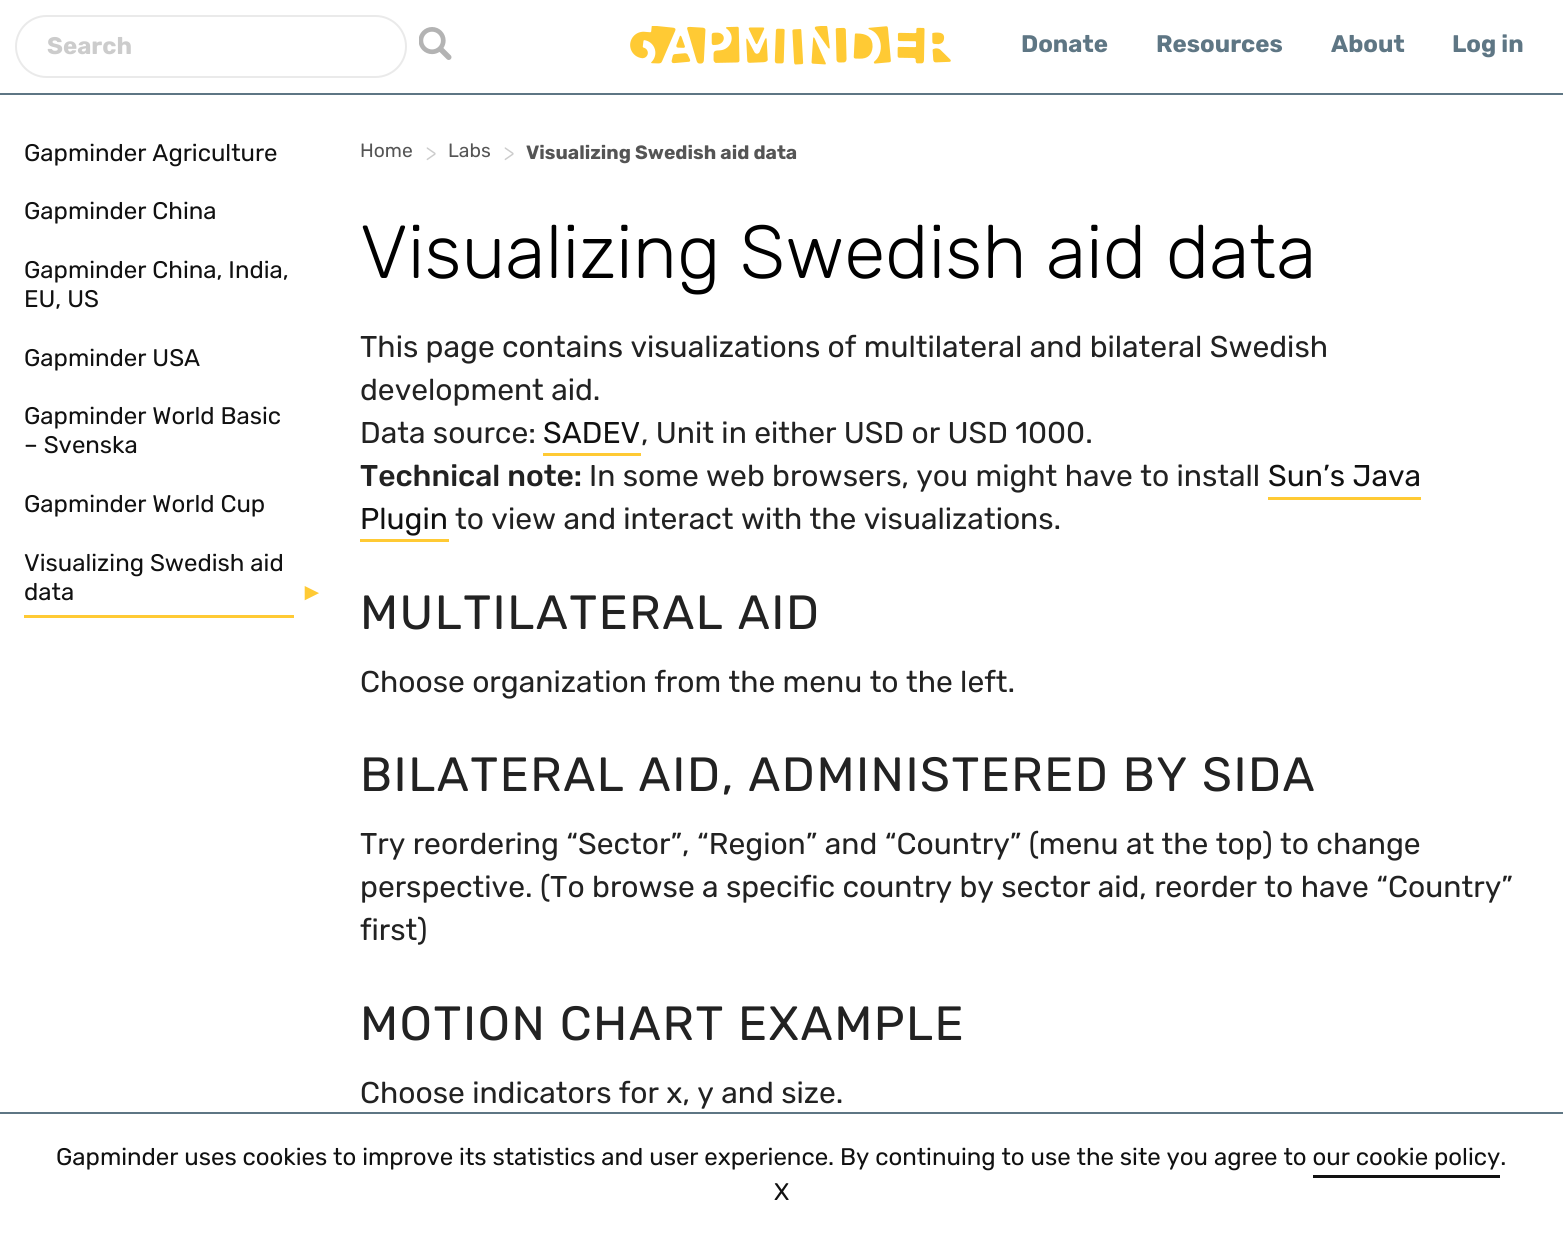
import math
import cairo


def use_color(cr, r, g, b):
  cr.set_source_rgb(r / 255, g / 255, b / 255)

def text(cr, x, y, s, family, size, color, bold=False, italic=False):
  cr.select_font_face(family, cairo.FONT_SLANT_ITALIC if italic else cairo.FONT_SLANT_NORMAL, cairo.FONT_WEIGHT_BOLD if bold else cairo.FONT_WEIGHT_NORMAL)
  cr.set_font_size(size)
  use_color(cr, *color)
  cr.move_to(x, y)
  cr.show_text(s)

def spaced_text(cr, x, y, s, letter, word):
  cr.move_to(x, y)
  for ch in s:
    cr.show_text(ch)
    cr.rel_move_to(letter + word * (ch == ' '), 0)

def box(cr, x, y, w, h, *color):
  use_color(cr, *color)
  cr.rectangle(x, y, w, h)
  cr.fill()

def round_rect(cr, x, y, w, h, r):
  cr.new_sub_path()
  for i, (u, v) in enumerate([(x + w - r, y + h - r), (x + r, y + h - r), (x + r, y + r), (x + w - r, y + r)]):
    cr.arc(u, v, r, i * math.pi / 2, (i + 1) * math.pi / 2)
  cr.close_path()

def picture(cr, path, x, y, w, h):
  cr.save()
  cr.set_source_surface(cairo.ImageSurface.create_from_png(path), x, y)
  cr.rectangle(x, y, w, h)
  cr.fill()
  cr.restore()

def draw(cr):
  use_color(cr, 255, 255, 255)
  cr.paint()
  box(cr, 0, 93, 1563, 2, 94, 118, 132)
  round_rect(cr, 16, 16, 390, 61, 30.5)
  use_color(cr, 234, 234, 234)
  cr.stroke()
  picture(cr, "img_01.png", 419, 27, 33, 33)
  picture(cr, "img_02.png", 630, 26, 321, 39)
  box(cr, 24, 615, 270, 3, 255, 202, 52)
  box(cr, 543, 453, 98, 3, 255, 202, 52)
  box(cr, 1268, 497, 153, 3, 255, 202, 52)
  box(cr, 360, 539, 89, 3, 255, 202, 52)
  box(cr, 0, 1112, 1563, 2, 94, 118, 132)
  box(cr, 1313, 1175, 187, 3, 17, 17, 17)
  text(cr, 47, 54, "Search", "Rubik", 24, (204, 204, 204), bold=True)
  text(cr, 1021, 52, "Donate", "Rubik", 24, (94, 118, 132), bold=True)
  text(cr, 1156, 52, "Resources", "Rubik", 24, (94, 118, 132), bold=True)
  text(cr, 1331, 52, "About", "Rubik", 24, (94, 118, 132), bold=True)
  text(cr, 1452, 52, "Log in", "Rubik", 24, (94, 118, 132), bold=True)
  text(cr, 24, 161, "Gapminder Agriculture", "Rubik", 24, (17, 17, 17))
  text(cr, 24, 219, "Gapminder China", "Rubik", 24, (17, 17, 17))
  text(cr, 24, 278, "Gapminder China, India,", "Rubik", 24, (17, 17, 17))
  text(cr, 24, 307, "EU, US", "Rubik", 24, (17, 17, 17))
  text(cr, 24, 366, "Gapminder USA", "Rubik", 24, (17, 17, 17))
  text(cr, 24, 424, "Gapminder World Basic", "Rubik", 24, (17, 17, 17))
  text(cr, 24, 453, "– Svenska", "Rubik", 24, (17, 17, 17))
  text(cr, 24, 512, "Gapminder World Cup", "Rubik", 24, (17, 17, 17))
  text(cr, 24, 571, "Visualizing Swedish aid", "Rubik", 24, (17, 17, 17))
  text(cr, 24, 600, "data", "Rubik", 24, (17, 17, 17))
  text(cr, 300, 600, "►", "Liberation Sans", 24, (255, 202, 52))
  text(cr, 360, 157, "Home", "Rubik", 19.25, (85, 85, 85))
  text(cr, 425, 161, ">", "Rubik Light", 24, (204, 204, 204))
  text(cr, 448, 157, "Labs", "Rubik", 19.25, (85, 85, 85))
  text(cr, 503, 161, ">", "Rubik Light", 24, (204, 204, 204))
  text(cr, 526, 159, "Visualizing Swedish aid data", "Rubik", 19.25, (85, 85, 85), bold=True)
  text(cr, 360, 278, "Visualizing Swedish aid data", "Rubik Light", 75, (0, 0, 0))
  text(cr, 360, 357, "This page contains visualizations of multilateral and bilateral Swedish", "Rubik", 30, (34, 34, 34))
  text(cr, 360, 400, "development aid.", "Rubik", 30, (34, 34, 34))
  text(cr, 360, 443, "Data source:", "Rubik", 30, (34, 34, 34))
  text(cr, 543, 443, "SADEV", "Rubik", 30, (17, 17, 17))
  text(cr, 641, 443, ", Unit in either USD or USD 1000.", "Rubik", 30, (34, 34, 34))
  text(cr, 360, 486, "Technical note:", "Rubik Medium", 30, (34, 34, 34))
  text(cr, 589, 486, "In some web browsers, you might have to install", "Rubik", 30, (34, 34, 34))
  text(cr, 1268, 486, "Sun’s Java", "Rubik", 30, (17, 17, 17))
  text(cr, 360, 529, "Plugin", "Rubik", 30, (17, 17, 17))
  text(cr, 455, 529, "to view and interact with the visualizations.", "Rubik", 30, (34, 34, 34))
  cr.set_font_size(48)
  spaced_text(cr, 360, 629, "MULTILATERAL AID", 1.5, 0)
  text(cr, 360, 692, "Choose organization from the menu to the left.", "Rubik", 30, (34, 34, 34))
  cr.set_font_size(48)
  spaced_text(cr, 360, 791, "BILATERAL AID, ADMINISTERED BY SIDA", 1.5, 0)
  text(cr, 360, 854, "Try reordering “Sector”, “Region” and “Country” (menu at the top) to change", "Rubik", 30, (34, 34, 34))
  text(cr, 360, 897, "perspective. (To browse a specific country by sector aid, reorder to have “Country”", "Rubik", 30, (34, 34, 34))
  text(cr, 360, 940, "first)", "Rubik", 30, (34, 34, 34))
  cr.set_font_size(48)
  spaced_text(cr, 360, 1040, "MOTION CHART EXAMPLE", 1.5, 0)
  text(cr, 360, 1103, "Choose indicators for x, y and size.", "Rubik", 30, (34, 34, 34))
  text(cr, 56, 1165, "Gapminder uses cookies to improve its statistics and user experience. By continuing to use the site you agree to our cookie policy.", "Rubik", 24, (17, 17, 17))
  text(cr, 774, 1200, "X", "Rubik", 24, (17, 17, 17))


surface = cairo.ImageSurface(cairo.FORMAT_RGB24, 1563, 1236)
cr = cairo.Context(surface)
options = cairo.FontOptions()
options.set_hint_metrics(cairo.HINT_METRICS_OFF)
options.set_hint_style(cairo.HINT_STYLE_NONE)
cr.set_font_options(options)
cr.set_miter_limit(4)
draw(cr)
surface.write_to_png("out.png")
